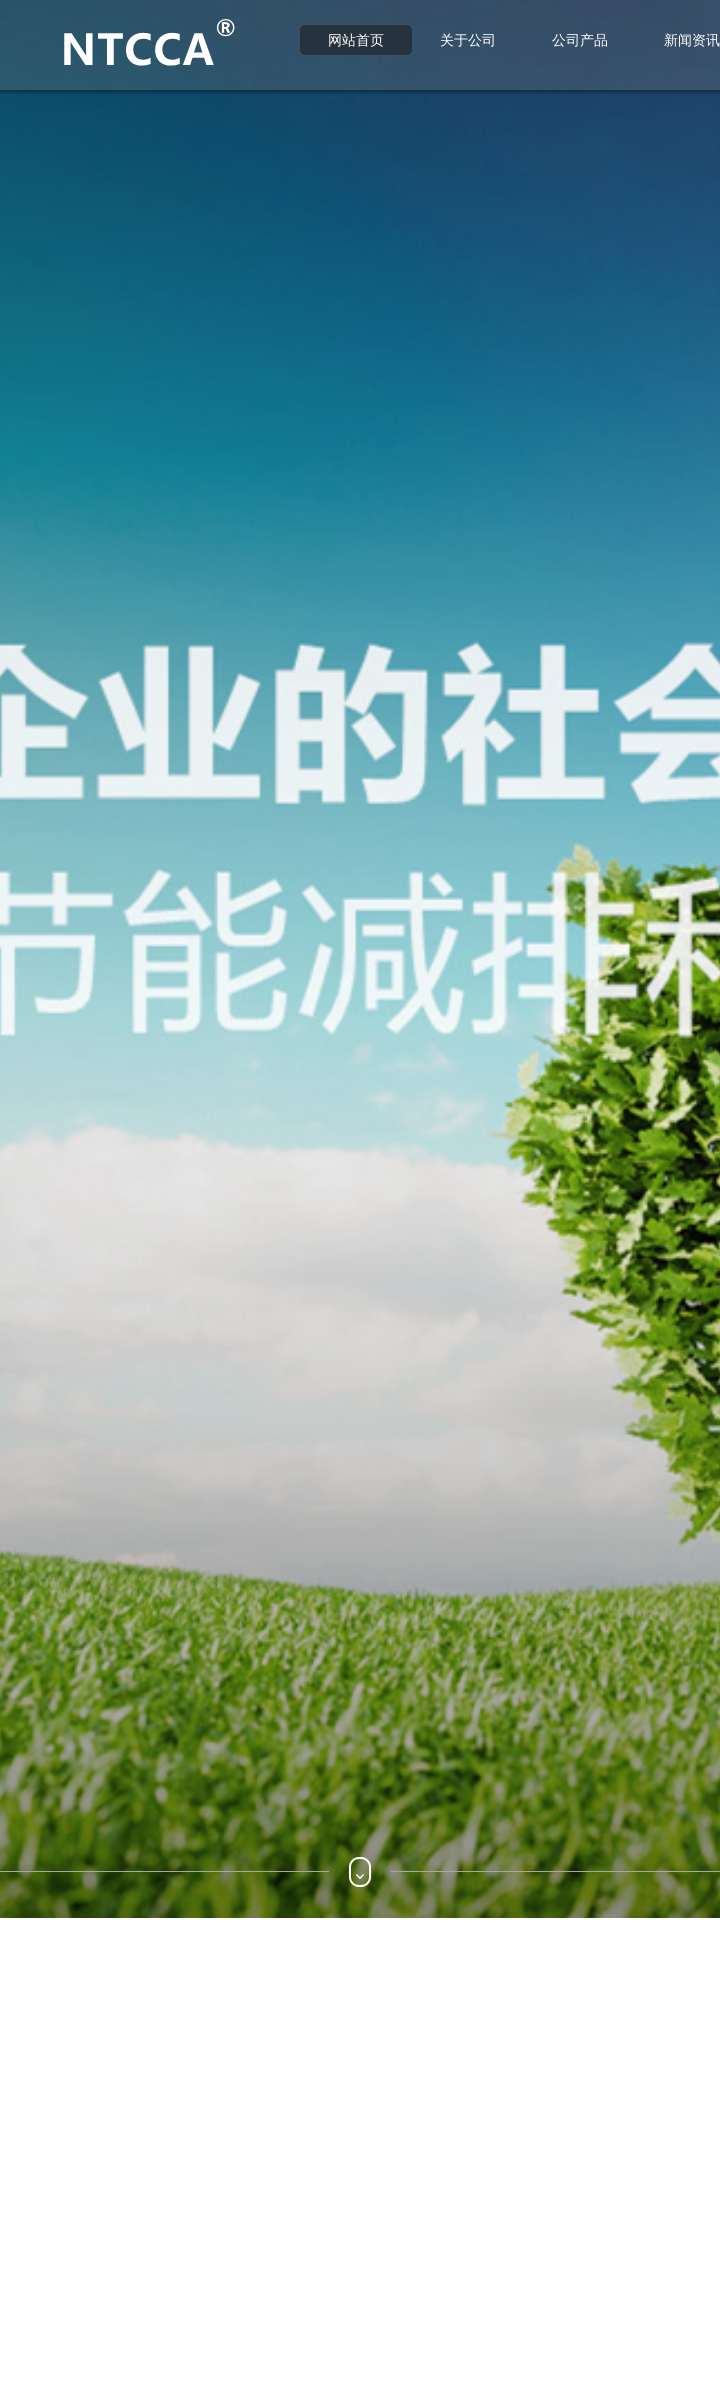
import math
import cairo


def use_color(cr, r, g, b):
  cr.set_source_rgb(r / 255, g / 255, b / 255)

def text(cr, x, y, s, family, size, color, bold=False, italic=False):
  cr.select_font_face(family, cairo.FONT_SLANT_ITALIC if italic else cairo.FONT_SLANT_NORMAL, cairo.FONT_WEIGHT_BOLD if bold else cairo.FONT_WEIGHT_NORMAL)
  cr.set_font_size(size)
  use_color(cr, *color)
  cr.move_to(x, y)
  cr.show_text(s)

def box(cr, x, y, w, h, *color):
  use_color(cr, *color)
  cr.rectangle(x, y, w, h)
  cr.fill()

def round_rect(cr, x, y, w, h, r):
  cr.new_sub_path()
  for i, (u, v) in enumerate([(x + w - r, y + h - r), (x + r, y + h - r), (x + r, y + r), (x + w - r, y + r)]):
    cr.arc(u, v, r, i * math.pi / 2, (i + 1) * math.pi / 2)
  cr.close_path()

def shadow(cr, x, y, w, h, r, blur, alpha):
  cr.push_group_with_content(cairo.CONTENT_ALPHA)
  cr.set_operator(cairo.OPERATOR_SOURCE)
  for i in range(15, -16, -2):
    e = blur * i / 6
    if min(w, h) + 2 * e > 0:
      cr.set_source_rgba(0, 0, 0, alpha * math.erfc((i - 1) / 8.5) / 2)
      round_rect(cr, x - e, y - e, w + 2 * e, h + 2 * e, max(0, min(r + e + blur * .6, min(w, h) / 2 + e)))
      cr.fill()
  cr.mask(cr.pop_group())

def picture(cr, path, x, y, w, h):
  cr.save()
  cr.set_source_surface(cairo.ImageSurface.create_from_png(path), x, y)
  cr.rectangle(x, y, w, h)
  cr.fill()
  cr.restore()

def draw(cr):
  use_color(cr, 255, 255, 255)
  cr.paint()
  picture(cr, "img_01.png", 0, 0, 720, 1918)
  box(cr, 0, 1871, 329, 1, 167, 168, 167)
  picture(cr, "img_02.png", 349, 1857, 22, 30)
  box(cr, 391, 1871, 329, 1, 167, 168, 167)
  cr.save()
  cr.rectangle(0, 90, 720, 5)
  cr.clip()
  use_color(cr, 0, 0, 0)
  shadow(cr, 0, 3, 720, 90, 0, 1.5, 0.3)
  cr.restore()
  cr.set_source_rgba(0.467, 0.467, 0.455, 0.3)
  cr.rectangle(0, 0, 720, 90)
  cr.fill()
  picture(cr, "img_03.png", 64, 19, 171, 47)
  use_color(cr, 39, 50, 63)
  round_rect(cr, 300, 25, 112, 30, 5)
  cr.fill()
  text(cr, 328, 45, "网站首页", "WenQuanYi Zen Hei Medium", 14, (255, 255, 255))
  text(cr, 440, 45, "关于公司", "WenQuanYi Zen Hei Medium", 14, (255, 255, 255))
  text(cr, 552, 45, "公司产品", "WenQuanYi Zen Hei Medium", 14, (255, 255, 255))
  text(cr, 664, 45, "新闻资讯", "WenQuanYi Zen Hei Medium", 14, (255, 255, 255))


surface = cairo.ImageSurface(cairo.FORMAT_RGB24, 720, 2401)
cr = cairo.Context(surface)
options = cairo.FontOptions()
options.set_hint_metrics(cairo.HINT_METRICS_OFF)
options.set_hint_style(cairo.HINT_STYLE_NONE)
cr.set_font_options(options)
cr.set_miter_limit(4)
draw(cr)
surface.write_to_png("out.png")
